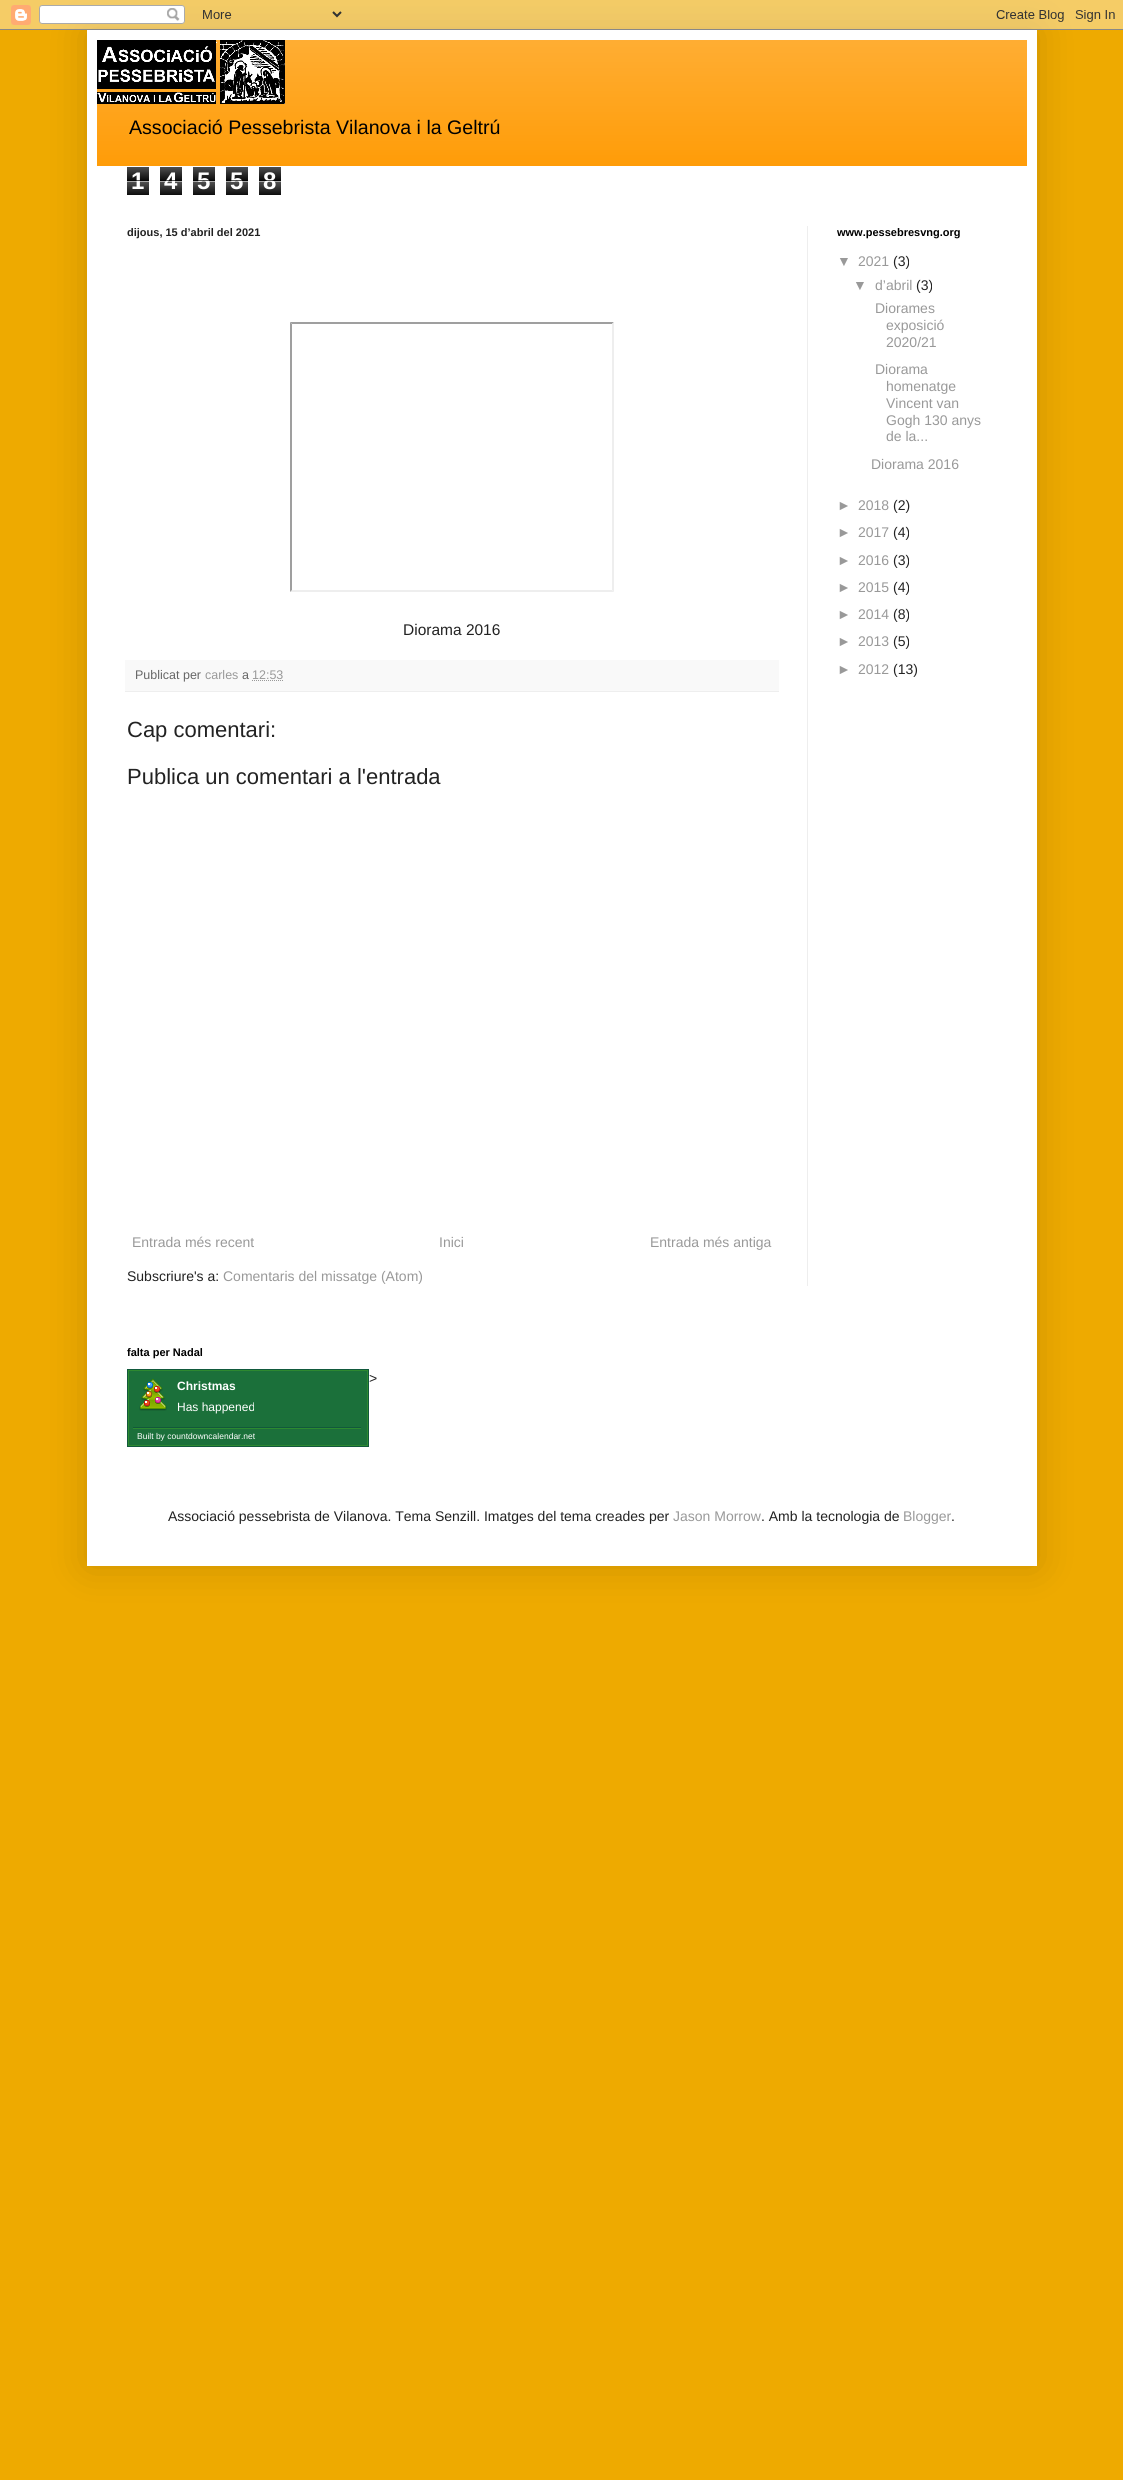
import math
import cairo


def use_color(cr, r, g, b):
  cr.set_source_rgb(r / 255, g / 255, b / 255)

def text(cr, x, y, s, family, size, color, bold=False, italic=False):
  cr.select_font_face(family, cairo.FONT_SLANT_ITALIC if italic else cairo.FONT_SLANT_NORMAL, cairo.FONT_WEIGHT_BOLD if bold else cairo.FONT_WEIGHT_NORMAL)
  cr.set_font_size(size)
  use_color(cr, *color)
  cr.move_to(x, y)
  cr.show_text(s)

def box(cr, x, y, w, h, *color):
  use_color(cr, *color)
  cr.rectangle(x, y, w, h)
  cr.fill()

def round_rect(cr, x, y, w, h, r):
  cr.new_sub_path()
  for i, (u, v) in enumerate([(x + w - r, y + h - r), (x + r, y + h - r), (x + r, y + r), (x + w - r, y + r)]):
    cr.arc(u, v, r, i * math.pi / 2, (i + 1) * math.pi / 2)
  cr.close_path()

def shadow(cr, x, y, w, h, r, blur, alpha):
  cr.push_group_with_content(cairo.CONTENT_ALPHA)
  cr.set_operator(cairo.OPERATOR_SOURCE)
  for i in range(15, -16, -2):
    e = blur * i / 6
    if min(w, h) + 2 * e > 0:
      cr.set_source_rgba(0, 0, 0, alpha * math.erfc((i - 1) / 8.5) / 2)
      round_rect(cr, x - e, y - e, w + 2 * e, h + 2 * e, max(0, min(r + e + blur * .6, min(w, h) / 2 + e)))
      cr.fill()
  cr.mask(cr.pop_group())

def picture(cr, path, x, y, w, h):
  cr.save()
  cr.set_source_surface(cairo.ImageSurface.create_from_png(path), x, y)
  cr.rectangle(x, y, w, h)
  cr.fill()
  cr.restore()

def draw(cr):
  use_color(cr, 238, 170, 0)
  cr.paint()
  use_color(cr, 0, 0, 0)
  shadow(cr, 87, 30, 950, 1536, 0, 20, 0.15)
  picture(cr, "img_01.png", 0, 0, 1123, 30)
  box(cr, 87, 30, 950, 1536, 255, 255, 255)
  box(cr, 97, 40, 930, 126, 255, 153, 0)
  picture(cr, "img_02.png", 97, 40, 930, 126)
  picture(cr, "img_03.png", 97, 40, 188, 64)
  picture(cr, "img_04.png", 127, 167, 22, 28)
  picture(cr, "img_04.png", 160, 167, 22, 28)
  picture(cr, "img_04.png", 193, 167, 22, 28)
  picture(cr, "img_04.png", 226, 167, 22, 28)
  picture(cr, "img_04.png", 259, 167, 22, 28)
  box(cr, 807, 226, 1, 1060, 238, 238, 238)
  use_color(cr, 159, 159, 159)
  cr.new_path()
  cr.move_to(290, 322)
  cr.line_to(614, 322)
  cr.line_to(612, 324)
  cr.line_to(292, 324)
  cr.close_path()
  cr.fill()
  use_color(cr, 238, 238, 238)
  cr.new_path()
  cr.move_to(614, 322)
  cr.line_to(614, 592)
  cr.line_to(612, 590)
  cr.line_to(612, 324)
  cr.close_path()
  cr.fill()
  cr.new_path()
  cr.move_to(614, 592)
  cr.line_to(290, 592)
  cr.line_to(292, 590)
  cr.line_to(612, 590)
  cr.close_path()
  cr.fill()
  use_color(cr, 159, 159, 159)
  cr.new_path()
  cr.move_to(290, 592)
  cr.line_to(290, 322)
  cr.line_to(292, 324)
  cr.line_to(292, 590)
  cr.close_path()
  cr.fill()
  box(cr, 125, 660, 654, 31, 249, 249, 249)
  box(cr, 125, 691, 654, 1, 238, 238, 238)
  cr.new_path()
  cr.move_to(252, 680.5)
  cr.line_to(283.5, 680.5)
  use_color(cr, 153, 153, 153)
  cr.set_line_width(1)
  cr.set_dash([1, 1])
  cr.stroke()
  cr.rectangle(127.5, 1369.5, 241, 77)
  use_color(cr, 17, 89, 60)
  cr.set_dash([])
  cr.stroke()
  use_color(cr, 27, 112, 58)
  cr.rectangle(128.5, 1370.5, 239, 75)
  cr.fill_preserve()
  use_color(cr, 45, 137, 48)
  cr.stroke()
  picture(cr, "img_05.png", 139, 1379, 28, 32)
  box(cr, 133, 1427, 228, 1, 17, 89, 60)
  box(cr, 133, 1428, 228, 1, 45, 137, 48)
  text(cr, 129, 134, "Associació Pessebrista Vilanova i la Geltrú", "Liberation Sans", 19.6, (0, 0, 0))
  text(cr, 131, 189, "1", "Liberation Sans", 24, (255, 255, 255), bold=True)
  cr.set_source_rgba(0, 0, 0, 0.65)
  cr.rectangle(127, 180, 22, 1)
  cr.fill()
  cr.set_source_rgba(1, 1, 1, 0.65)
  cr.rectangle(127, 181, 22, 1)
  cr.fill()
  text(cr, 164, 189, "4", "Liberation Sans", 24, (255, 255, 255), bold=True)
  cr.set_source_rgba(0, 0, 0, 0.65)
  cr.rectangle(160, 180, 22, 1)
  cr.fill()
  cr.set_source_rgba(1, 1, 1, 0.65)
  cr.rectangle(160, 181, 22, 1)
  cr.fill()
  text(cr, 197, 189, "5", "Liberation Sans", 24, (255, 255, 255), bold=True)
  cr.set_source_rgba(0, 0, 0, 0.65)
  cr.rectangle(193, 180, 22, 1)
  cr.fill()
  cr.set_source_rgba(1, 1, 1, 0.65)
  cr.rectangle(193, 181, 22, 1)
  cr.fill()
  text(cr, 230, 189, "5", "Liberation Sans", 24, (255, 255, 255), bold=True)
  cr.set_source_rgba(0, 0, 0, 0.65)
  cr.rectangle(226, 180, 22, 1)
  cr.fill()
  cr.set_source_rgba(1, 1, 1, 0.65)
  cr.rectangle(226, 181, 22, 1)
  cr.fill()
  text(cr, 263, 189, "8", "Liberation Sans", 24, (255, 255, 255), bold=True)
  cr.set_source_rgba(0, 0, 0, 0.65)
  cr.rectangle(259, 180, 22, 1)
  cr.fill()
  cr.set_source_rgba(1, 1, 1, 0.65)
  cr.rectangle(259, 181, 22, 1)
  cr.fill()
  text(cr, 127, 236, "dijous, 15 d’abril del 2021", "Liberation Sans", 11, (34, 34, 34), bold=True)
  text(cr, 403, 635, "Diorama 2016", "Liberation Sans", 15.5, (34, 34, 34))
  text(cr, 135, 679, "Publicat per", "Liberation Sans", 12.5, (102, 102, 102))
  text(cr, 205, 679, "carles", "Liberation Sans", 12.5, (153, 153, 153))
  text(cr, 242, 679, "a", "Liberation Sans", 12.5, (102, 102, 102))
  text(cr, 252, 679, "12:53", "Liberation Sans", 12.5, (153, 153, 153))
  text(cr, 127, 737, "Cap comentari:", "Liberation Sans", 22, (34, 34, 34))
  text(cr, 127, 784, "Publica un comentari a l'entrada", "Liberation Sans", 22, (34, 34, 34))
  text(cr, 132, 1247, "Entrada més recent", "Liberation Sans", 14, (153, 153, 153))
  text(cr, 439, 1247, "Inici", "Liberation Sans", 14, (153, 153, 153))
  text(cr, 650, 1247, "Entrada més antiga", "Liberation Sans", 14, (153, 153, 153))
  text(cr, 127, 1281, "Subscriure's a:", "Liberation Sans", 14, (34, 34, 34))
  text(cr, 223, 1281, "Comentaris del missatge (Atom)", "Liberation Sans", 14, (153, 153, 153))
  text(cr, 837, 236, "www.pessebresvng.org", "Liberation Sans", 11, (0, 0, 0), bold=True)
  text(cr, 837, 266, "▼", "Liberation Sans", 14, (153, 153, 153))
  text(cr, 858, 266, "2021", "Liberation Sans", 14, (153, 153, 153))
  text(cr, 893, 266, "(3)", "Liberation Sans", 14, (34, 34, 34))
  text(cr, 853, 290, "▼", "Liberation Sans", 14, (153, 153, 153))
  text(cr, 875, 290, "d’abril", "Liberation Sans", 14, (153, 153, 153))
  text(cr, 916, 290, "(3)", "Liberation Sans", 14, (34, 34, 34))
  text(cr, 875, 313, "Diorames", "Liberation Sans", 14, (153, 153, 153))
  text(cr, 886, 330, "exposició", "Liberation Sans", 14, (153, 153, 153))
  text(cr, 886, 347, "2020/21", "Liberation Sans", 14, (153, 153, 153))
  text(cr, 875, 374, "Diorama", "Liberation Sans", 14, (153, 153, 153))
  text(cr, 886, 391, "homenatge", "Liberation Sans", 14, (153, 153, 153))
  text(cr, 886, 408, "Vincent van", "Liberation Sans", 14, (153, 153, 153))
  text(cr, 886, 425, "Gogh 130 anys", "Liberation Sans", 14, (153, 153, 153))
  text(cr, 886, 441, "de la...", "Liberation Sans", 14, (153, 153, 153))
  text(cr, 871, 469, "Diorama 2016", "Liberation Sans", 14, (153, 153, 153))
  text(cr, 837, 510, "►", "Liberation Sans", 14, (153, 153, 153))
  text(cr, 858, 510, "2018", "Liberation Sans", 14, (153, 153, 153))
  text(cr, 893, 510, "(2)", "Liberation Sans", 14, (34, 34, 34))
  text(cr, 837, 537, "►", "Liberation Sans", 14, (153, 153, 153))
  text(cr, 858, 537, "2017", "Liberation Sans", 14, (153, 153, 153))
  text(cr, 893, 537, "(4)", "Liberation Sans", 14, (34, 34, 34))
  text(cr, 837, 565, "►", "Liberation Sans", 14, (153, 153, 153))
  text(cr, 858, 565, "2016", "Liberation Sans", 14, (153, 153, 153))
  text(cr, 893, 565, "(3)", "Liberation Sans", 14, (34, 34, 34))
  text(cr, 837, 592, "►", "Liberation Sans", 14, (153, 153, 153))
  text(cr, 858, 592, "2015", "Liberation Sans", 14, (153, 153, 153))
  text(cr, 893, 592, "(4)", "Liberation Sans", 14, (34, 34, 34))
  text(cr, 837, 619, "►", "Liberation Sans", 14, (153, 153, 153))
  text(cr, 858, 619, "2014", "Liberation Sans", 14, (153, 153, 153))
  text(cr, 893, 619, "(8)", "Liberation Sans", 14, (34, 34, 34))
  text(cr, 837, 646, "►", "Liberation Sans", 14, (153, 153, 153))
  text(cr, 858, 646, "2013", "Liberation Sans", 14, (153, 153, 153))
  text(cr, 893, 646, "(5)", "Liberation Sans", 14, (34, 34, 34))
  text(cr, 837, 674, "►", "Liberation Sans", 14, (153, 153, 153))
  text(cr, 858, 674, "2012", "Liberation Sans", 14, (153, 153, 153))
  text(cr, 893, 674, "(13)", "Liberation Sans", 14, (34, 34, 34))
  text(cr, 127, 1356, "falta per Nadal", "Liberation Sans", 11, (0, 0, 0), bold=True)
  text(cr, 369, 1383, ">", "Liberation Sans", 14, (34, 34, 34))
  text(cr, 177, 1390, "Christmas", "Liberation Sans", 12, (255, 255, 255), bold=True)
  text(cr, 177, 1411, "Has happened", "Liberation Sans", 12, (255, 255, 255))
  text(cr, 137, 1439, "Built by countdowncalendar.net", "Liberation Sans", 8.5, (255, 255, 255))
  text(cr, 168, 1521, "Associació pessebrista de Vilanova. Tema Senzill. Imatges del tema creades per", "Liberation Sans", 14, (34, 34, 34))
  text(cr, 673, 1521, "Jason Morrow", "Liberation Sans", 14, (153, 153, 153))
  text(cr, 761, 1521, ". Amb la tecnologia de", "Liberation Sans", 14, (34, 34, 34))
  text(cr, 903, 1521, "Blogger", "Liberation Sans", 14, (153, 153, 153))
  text(cr, 951, 1521, ".", "Liberation Sans", 14, (34, 34, 34))


surface = cairo.ImageSurface(cairo.FORMAT_RGB24, 1123, 2480)
cr = cairo.Context(surface)
options = cairo.FontOptions()
options.set_hint_metrics(cairo.HINT_METRICS_OFF)
options.set_hint_style(cairo.HINT_STYLE_NONE)
cr.set_font_options(options)
cr.set_miter_limit(4)
draw(cr)
surface.write_to_png("out.png")
